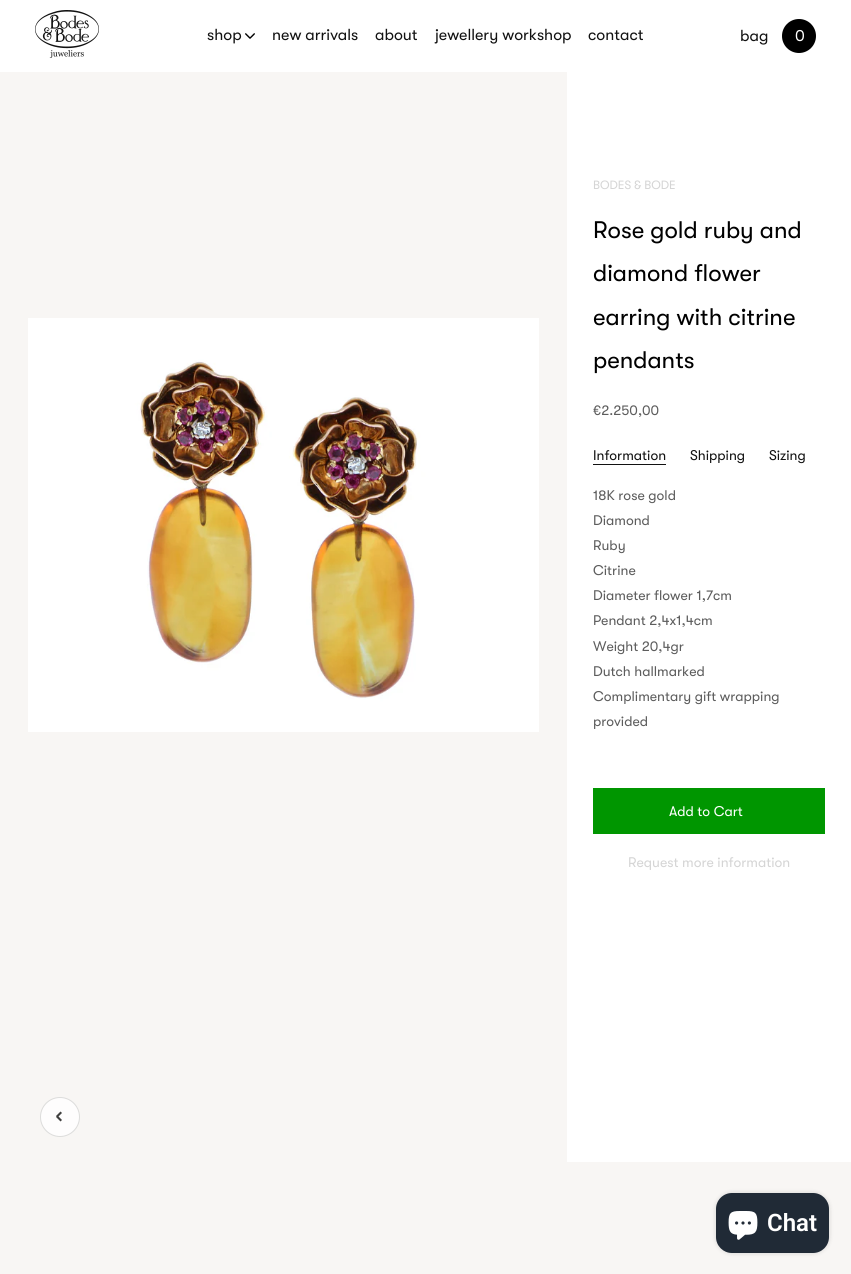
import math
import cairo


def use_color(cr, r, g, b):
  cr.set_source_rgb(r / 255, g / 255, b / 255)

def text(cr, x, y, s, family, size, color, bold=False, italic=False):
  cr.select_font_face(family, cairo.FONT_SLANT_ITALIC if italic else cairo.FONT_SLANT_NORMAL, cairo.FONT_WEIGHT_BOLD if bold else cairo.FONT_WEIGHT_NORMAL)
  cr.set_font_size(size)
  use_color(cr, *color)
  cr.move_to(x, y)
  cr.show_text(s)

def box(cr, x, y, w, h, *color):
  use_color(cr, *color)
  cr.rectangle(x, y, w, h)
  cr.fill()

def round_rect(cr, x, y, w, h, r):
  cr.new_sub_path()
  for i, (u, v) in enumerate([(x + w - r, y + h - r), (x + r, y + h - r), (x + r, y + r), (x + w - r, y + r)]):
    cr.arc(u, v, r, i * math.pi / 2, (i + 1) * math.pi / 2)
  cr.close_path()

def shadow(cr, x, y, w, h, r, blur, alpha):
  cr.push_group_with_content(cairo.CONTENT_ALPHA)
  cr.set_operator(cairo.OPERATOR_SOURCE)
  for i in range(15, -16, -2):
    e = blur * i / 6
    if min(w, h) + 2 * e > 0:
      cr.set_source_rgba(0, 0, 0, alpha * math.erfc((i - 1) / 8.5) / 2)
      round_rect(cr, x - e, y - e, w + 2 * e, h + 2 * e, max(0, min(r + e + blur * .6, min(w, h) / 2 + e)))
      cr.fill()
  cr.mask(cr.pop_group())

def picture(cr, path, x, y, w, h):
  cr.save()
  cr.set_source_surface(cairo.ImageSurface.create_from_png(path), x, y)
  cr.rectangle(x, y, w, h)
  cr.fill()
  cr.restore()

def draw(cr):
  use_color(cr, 255, 255, 255)
  cr.paint()
  picture(cr, "img_01.png", 35, 10, 64, 48)
  picture(cr, "img_02.png", 245, 33, 10, 6)
  use_color(cr, 0, 0, 0)
  cr.arc(799, 36, 17, 0, 2 * math.pi)
  cr.fill()
  box(cr, 0, 72, 567, 1090, 248, 246, 244)
  picture(cr, "img_03.png", 28, 318, 511, 414)
  box(cr, 593, 464, 73, 1, 18, 18, 18)
  box(cr, 593, 788, 232, 46, 0, 150, 0)
  use_color(cr, 254, 253, 253)
  cr.arc(60, 1117, 19.5, 0, 2 * math.pi)
  cr.fill_preserve()
  use_color(cr, 220, 220, 219)
  cr.set_line_width(1)
  cr.stroke()
  use_color(cr, 64, 64, 63)
  cr.new_path()
  cr.move_to(57.5, 1115.5)
  cr.line_to(62, 1120)
  cr.line_to(60.5, 1121.5)
  cr.line_to(56, 1117)
  cr.close_path()
  cr.fill()
  cr.new_path()
  cr.move_to(56, 1116)
  cr.line_to(60.5, 1111.5)
  cr.line_to(62, 1113)
  cr.line_to(57.5, 1117.5)
  cr.close_path()
  cr.fill()
  box(cr, 0, 1162, 851, 112, 248, 246, 244)
  use_color(cr, 0, 0, 0)
  shadow(cr, 716, 1193, 113, 60, 16, 2.5, 0.15)
  use_color(cr, 32, 42, 54)
  round_rect(cr, 716, 1193, 113, 60, 16)
  cr.fill()
  picture(cr, "img_04.png", 728, 1211, 30, 29)
  text(cr, 207, 40, "shop", "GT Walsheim", 16, (18, 18, 18))
  text(cr, 272, 40, "new arrivals", "GT Walsheim", 16, (18, 18, 18))
  text(cr, 375, 40, "about", "GT Walsheim", 16, (18, 18, 18))
  text(cr, 435, 40, "jewellery workshop", "GT Walsheim", 16, (18, 18, 18))
  text(cr, 588, 40, "contact", "GT Walsheim", 16, (18, 18, 18))
  text(cr, 740, 41, "bag", "GT Walsheim", 16, (18, 18, 18))
  text(cr, 795, 41, "0", "GT Walsheim", 16, (255, 255, 255))
  text(cr, 593, 189, "BODES & BODE", "GT Walsheim", 12, (213, 213, 213))
  text(cr, 593, 238, "Rose gold ruby and", "GT Walsheim", 24, (0, 0, 0))
  text(cr, 593, 281, "diamond flower", "GT Walsheim", 24, (0, 0, 0))
  text(cr, 593, 325, "earring with citrine", "GT Walsheim", 24, (0, 0, 0))
  text(cr, 593, 368, "pendants", "GT Walsheim", 24, (0, 0, 0))
  text(cr, 593, 415, "€2.250,00", "GT Walsheim", 14, (93, 93, 93))
  text(cr, 593, 460, "Information", "GT Walsheim", 14, (18, 18, 18))
  text(cr, 690, 460, "Shipping", "GT Walsheim", 14, (18, 18, 18))
  text(cr, 769, 460, "Sizing", "GT Walsheim", 14, (18, 18, 18))
  text(cr, 593, 500, "18K rose gold", "GT Walsheim", 14, (93, 93, 93))
  text(cr, 593, 525, "Diamond", "GT Walsheim", 14, (93, 93, 93))
  text(cr, 593, 550, "Ruby", "GT Walsheim", 14, (93, 93, 93))
  text(cr, 593, 575, "Citrine", "GT Walsheim", 14, (93, 93, 93))
  text(cr, 593, 600, "Diameter flower 1,7cm", "GT Walsheim", 14, (93, 93, 93))
  text(cr, 593, 625, "Pendant 2,4x1,4cm", "GT Walsheim", 14, (93, 93, 93))
  text(cr, 593, 651, "Weight 20,4gr", "GT Walsheim", 14, (93, 93, 93))
  text(cr, 593, 676, "Dutch hallmarked", "GT Walsheim", 14, (93, 93, 93))
  text(cr, 593, 701, "Complimentary gift wrapping", "GT Walsheim", 14, (93, 93, 93))
  text(cr, 593, 726, "provided", "GT Walsheim", 14, (93, 93, 93))
  text(cr, 669, 816, "Add to Cart", "GT Walsheim", 14, (255, 255, 255))
  text(cr, 628, 867, "Request more information", "GT Walsheim", 14, (213, 213, 213))
  text(cr, 767, 1231, "Chat", "Roboto SemiBold", 24, (255, 255, 255))


surface = cairo.ImageSurface(cairo.FORMAT_RGB24, 851, 1274)
cr = cairo.Context(surface)
options = cairo.FontOptions()
options.set_hint_metrics(cairo.HINT_METRICS_OFF)
options.set_hint_style(cairo.HINT_STYLE_NONE)
cr.set_font_options(options)
cr.set_miter_limit(4)
draw(cr)
surface.write_to_png("out.png")
